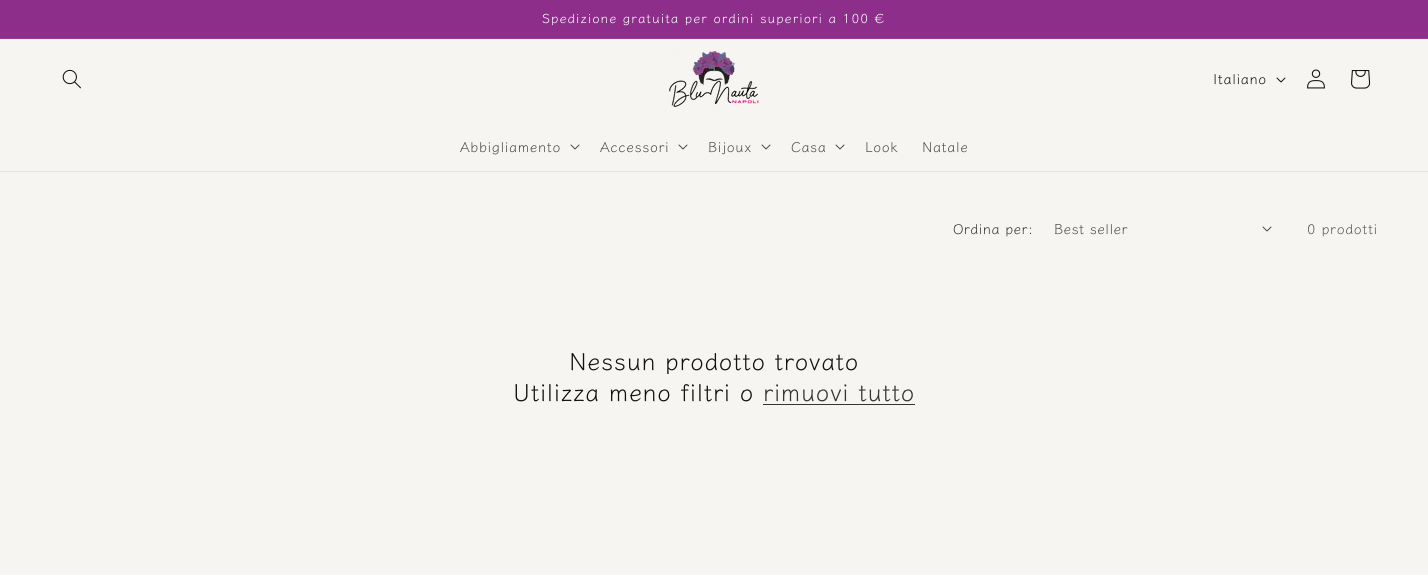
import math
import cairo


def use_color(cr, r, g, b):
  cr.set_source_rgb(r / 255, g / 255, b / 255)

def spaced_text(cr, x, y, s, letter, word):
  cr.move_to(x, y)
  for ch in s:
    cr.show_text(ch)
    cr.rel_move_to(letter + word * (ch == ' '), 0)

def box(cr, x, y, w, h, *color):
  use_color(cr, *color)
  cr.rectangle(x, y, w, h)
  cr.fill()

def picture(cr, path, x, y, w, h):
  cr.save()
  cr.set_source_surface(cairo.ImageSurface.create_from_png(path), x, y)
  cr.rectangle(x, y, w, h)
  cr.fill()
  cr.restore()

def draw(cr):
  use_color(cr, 247, 245, 242)
  cr.paint()
  box(cr, 0, 0, 1428, 38, 140, 46, 138)
  box(cr, 0, 38, 1428, 1, 149, 63, 147)
  box(cr, 0, 171, 1428, 1, 229, 227, 224)
  picture(cr, "img_01.png", 62, 69, 19, 20)
  picture(cr, "img_02.png", 669, 51, 90, 56)
  picture(cr, "img_03.png", 1276, 77, 10, 6)
  picture(cr, "img_04.png", 1307, 69, 18, 20)
  picture(cr, "img_05.png", 1351, 70, 20, 19)
  picture(cr, "img_06.png", 570, 144, 10, 6)
  picture(cr, "img_06.png", 678, 144, 10, 6)
  picture(cr, "img_06.png", 761, 144, 10, 6)
  picture(cr, "img_06.png", 835, 144, 10, 6)
  picture(cr, "img_06.png", 1262, 226, 10, 6)
  box(cr, 763, 404, 152, 1, 52, 52, 52)
  cr.select_font_face("Klee One")
  cr.set_font_size(13)
  use_color(cr, 255, 255, 255)
  spaced_text(cr, 542, 23, "Spedizione gratuita per ordini superiori a 100 €", 1, 0)
  cr.set_font_size(14)
  use_color(cr, 18, 18, 18)
  spaced_text(cr, 1213, 84, "Italiano", 0.6, 0)
  use_color(cr, 75, 75, 74)
  spaced_text(cr, 460, 152, "Abbigliamento", 0.6, 0)
  spaced_text(cr, 600, 152, "Accessori", 0.6, 0)
  spaced_text(cr, 708, 152, "Bijoux", 0.6, 0)
  spaced_text(cr, 791, 152, "Casa", 0.6, 0)
  spaced_text(cr, 865, 152, "Look", 0.6, 0)
  spaced_text(cr, 922, 152, "Natale", 0.6, 0)
  use_color(cr, 52, 52, 52)
  spaced_text(cr, 953, 234, "Ordina per:", 0.4, 0)
  use_color(cr, 75, 75, 74)
  spaced_text(cr, 1054, 234, "Best seller", 0.4, 0)
  use_color(cr, 87, 86, 85)
  spaced_text(cr, 1307, 234, "0 prodotti", 0.6, 0)
  cr.set_font_size(24)
  use_color(cr, 18, 18, 18)
  spaced_text(cr, 569, 370, "Nessun prodotto trovato", 0.6, 0)
  spaced_text(cr, 513, 401, "Utilizza meno filtri o", 0.6, 0)
  use_color(cr, 52, 52, 52)
  spaced_text(cr, 763, 401, "rimuovi tutto", 0.6, 0)


surface = cairo.ImageSurface(cairo.FORMAT_RGB24, 1428, 575)
cr = cairo.Context(surface)
options = cairo.FontOptions()
options.set_hint_metrics(cairo.HINT_METRICS_OFF)
options.set_hint_style(cairo.HINT_STYLE_NONE)
cr.set_font_options(options)
cr.set_miter_limit(4)
draw(cr)
surface.write_to_png("out.png")
